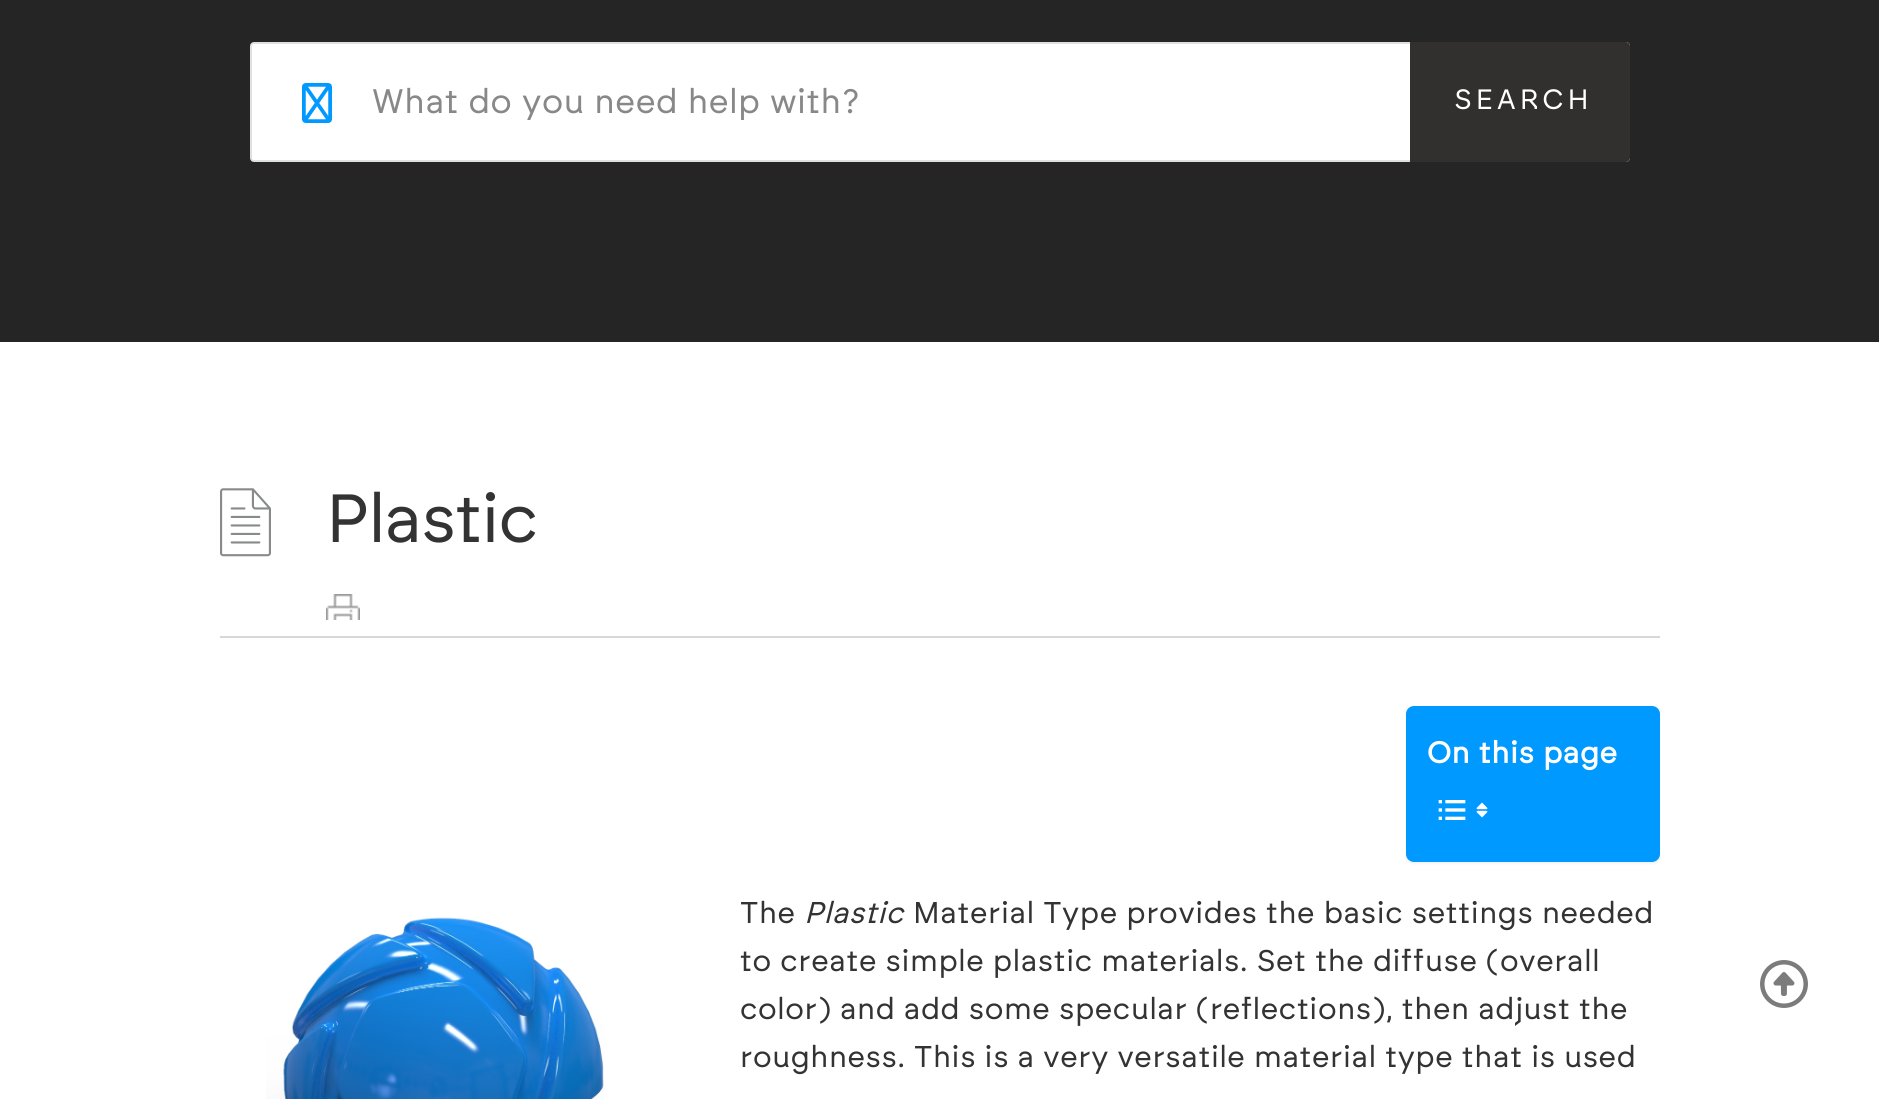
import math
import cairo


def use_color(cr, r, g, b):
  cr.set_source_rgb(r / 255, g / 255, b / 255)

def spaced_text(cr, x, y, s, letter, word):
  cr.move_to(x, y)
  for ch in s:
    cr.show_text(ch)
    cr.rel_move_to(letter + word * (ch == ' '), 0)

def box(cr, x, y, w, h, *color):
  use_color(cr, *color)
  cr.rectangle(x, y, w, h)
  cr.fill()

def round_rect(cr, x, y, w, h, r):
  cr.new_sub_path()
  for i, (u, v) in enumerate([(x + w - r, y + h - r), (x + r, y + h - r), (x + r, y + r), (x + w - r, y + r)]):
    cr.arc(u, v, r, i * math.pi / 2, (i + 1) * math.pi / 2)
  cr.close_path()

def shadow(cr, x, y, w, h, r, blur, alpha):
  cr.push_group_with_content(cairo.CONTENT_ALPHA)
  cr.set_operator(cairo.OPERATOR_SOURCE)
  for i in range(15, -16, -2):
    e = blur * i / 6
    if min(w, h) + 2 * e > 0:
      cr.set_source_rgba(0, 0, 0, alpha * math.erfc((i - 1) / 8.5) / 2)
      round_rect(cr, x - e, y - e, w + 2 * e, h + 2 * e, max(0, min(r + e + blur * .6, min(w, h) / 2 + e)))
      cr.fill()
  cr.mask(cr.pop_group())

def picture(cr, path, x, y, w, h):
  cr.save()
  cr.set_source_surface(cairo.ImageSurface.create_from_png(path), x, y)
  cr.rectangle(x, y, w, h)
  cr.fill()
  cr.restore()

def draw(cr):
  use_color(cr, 255, 255, 255)
  cr.paint()
  box(cr, 0, 0, 1879, 342, 37, 37, 37)
  use_color(cr, 255, 255, 255)
  round_rect(cr, 251, 43, 1378, 118, 3)
  cr.fill_preserve()
  use_color(cr, 221, 225, 225)
  cr.stroke()
  picture(cr, "img_01.png", 302, 83, 30, 40)
  use_color(cr, 50, 48, 47)
  cr.new_path()
  cr.move_to(1410, 42)
  cr.line_to(1626, 42)
  cr.curve_to(1628, 42, 1630, 44, 1630, 46)
  cr.line_to(1630, 158)
  cr.curve_to(1630, 160, 1628, 162, 1626, 162)
  cr.line_to(1410, 162)
  cr.close_path()
  cr.fill()
  picture(cr, "img_02.png", 220, 488, 51, 69)
  picture(cr, "img_03.png", 326, 594, 34, 26)
  box(cr, 220, 636, 1440, 2, 215, 215, 215)
  use_color(cr, 0, 0, 0)
  shadow(cr, 1406, 708, 254, 156, 8, 1, 0.05)
  use_color(cr, 0, 153, 255)
  round_rect(cr, 1407, 707, 252, 154, 7)
  cr.fill_preserve()
  cr.stroke()
  picture(cr, "img_04.png", 1438, 800, 28, 20)
  picture(cr, "img_05.png", 1476, 802, 12, 16)
  picture(cr, "img_06.png", 266, 917, 338, 182)
  picture(cr, "img_07.png", 1760, 960, 48, 48)
  cr.save()
  cr.rectangle(372, 86, 1232, 34)
  cr.clip()
  cr.select_font_face("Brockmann")
  cr.set_font_size(34)
  use_color(cr, 136, 136, 136)
  spaced_text(cr, 372, 113, "What do you need help with?", 0.6, 0)
  cr.restore()
  cr.select_font_face("Brockmann")
  cr.set_font_size(28)
  use_color(cr, 255, 255, 255)
  spaced_text(cr, 1454, 109, "SEARCH", 4, 0)
  cr.set_font_size(68)
  use_color(cr, 51, 51, 51)
  spaced_text(cr, 326, 542, "Plastic", -0.75, 0)
  cr.select_font_face("Brockmann", cairo.FONT_SLANT_NORMAL, cairo.FONT_WEIGHT_BOLD)
  cr.set_font_size(30)
  use_color(cr, 255, 255, 255)
  spaced_text(cr, 1427, 763, "On this page", 0.6, 0)
  cr.select_font_face("Brockmann")
  use_color(cr, 51, 51, 51)
  spaced_text(cr, 740, 923, "The", 0.6, 0)
  cr.select_font_face("Brockmann", cairo.FONT_SLANT_ITALIC)
  spaced_text(cr, 804, 923, "Plastic", 0.6, 0)
  cr.select_font_face("Brockmann")
  spaced_text(cr, 913, 923, "Material Type provides the basic settings needed", 0.6, 0)
  spaced_text(cr, 740, 971, "to create simple plastic materials. Set the diffuse (overall", 0.6, 0)
  spaced_text(cr, 740, 1019, "color) and add some specular (reflections), then adjust the", 0.6, 0)
  spaced_text(cr, 740, 1067, "roughness. This is a very versatile material type that is used", 0.6, 0)


surface = cairo.ImageSurface(cairo.FORMAT_RGB24, 1879, 1099)
cr = cairo.Context(surface)
options = cairo.FontOptions()
options.set_hint_metrics(cairo.HINT_METRICS_OFF)
options.set_hint_style(cairo.HINT_STYLE_NONE)
cr.set_font_options(options)
cr.set_miter_limit(4)
draw(cr)
surface.write_to_png("out.png")
